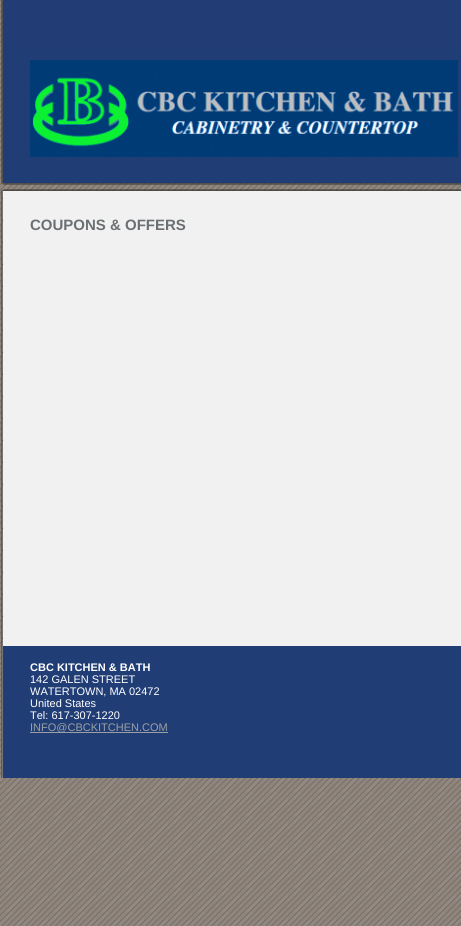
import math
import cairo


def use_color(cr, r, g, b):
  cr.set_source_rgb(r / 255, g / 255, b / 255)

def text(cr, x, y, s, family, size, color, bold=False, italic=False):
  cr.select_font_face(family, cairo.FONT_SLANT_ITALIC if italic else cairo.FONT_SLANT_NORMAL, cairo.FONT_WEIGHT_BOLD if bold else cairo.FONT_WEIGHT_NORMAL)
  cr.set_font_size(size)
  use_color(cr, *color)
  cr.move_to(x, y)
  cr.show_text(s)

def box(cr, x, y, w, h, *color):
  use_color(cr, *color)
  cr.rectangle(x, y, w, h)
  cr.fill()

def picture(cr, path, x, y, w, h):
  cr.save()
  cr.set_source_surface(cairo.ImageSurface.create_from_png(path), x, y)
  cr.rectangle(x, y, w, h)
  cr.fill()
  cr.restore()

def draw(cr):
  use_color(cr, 255, 255, 255)
  cr.paint()
  picture(cr, "img_01.png", 0, 778, 461, 148)
  picture(cr, "img_02.png", 0, 191, 461, 455)
  box(cr, 3, 0, 458, 46, 34, 60, 117)
  picture(cr, "img_03.png", 0, 0, 3, 46)
  picture(cr, "img_04.png", 0, 46, 461, 145)
  picture(cr, "img_05.png", 30, 60, 428, 97)
  picture(cr, "img_06.png", 0, 646, 461, 132)
  box(cr, 30, 732, 138, 1, 156, 160, 164)
  text(cr, 30, 230, "COUPONS & OFFERS", "Liberation Sans", 15, (107, 112, 116), bold=True)
  text(cr, 30, 671, "CBC KITCHEN & BATH", "Liberation Sans", 11, (255, 255, 255), bold=True)
  text(cr, 30, 683, "142 GALEN STREET", "Liberation Sans", 11, (255, 255, 255))
  text(cr, 30, 695, "WATERTOWN, MA 02472", "Liberation Sans", 11, (255, 255, 255))
  text(cr, 30, 707, "United States", "Liberation Sans", 11, (255, 255, 255))
  text(cr, 30, 719, "Tel: 617-307-1220", "Liberation Sans", 11, (255, 255, 255))
  text(cr, 30, 731, "INFO@CBCKITCHEN.COM", "Liberation Sans", 11, (156, 160, 164))


surface = cairo.ImageSurface(cairo.FORMAT_RGB24, 461, 926)
cr = cairo.Context(surface)
options = cairo.FontOptions()
options.set_hint_metrics(cairo.HINT_METRICS_OFF)
options.set_hint_style(cairo.HINT_STYLE_NONE)
cr.set_font_options(options)
cr.set_miter_limit(4)
draw(cr)
surface.write_to_png("out.png")
